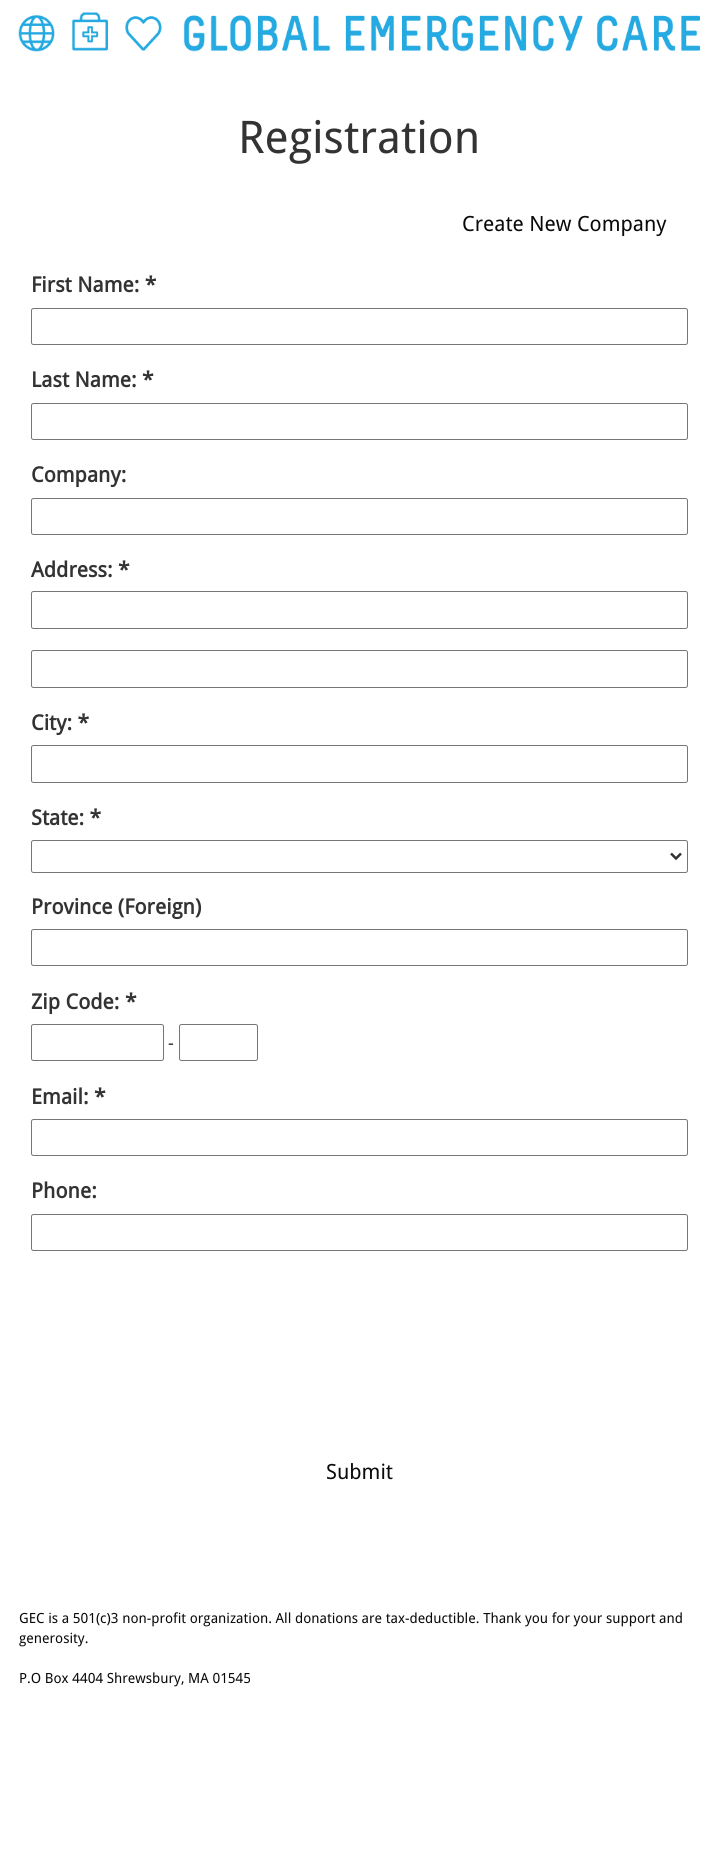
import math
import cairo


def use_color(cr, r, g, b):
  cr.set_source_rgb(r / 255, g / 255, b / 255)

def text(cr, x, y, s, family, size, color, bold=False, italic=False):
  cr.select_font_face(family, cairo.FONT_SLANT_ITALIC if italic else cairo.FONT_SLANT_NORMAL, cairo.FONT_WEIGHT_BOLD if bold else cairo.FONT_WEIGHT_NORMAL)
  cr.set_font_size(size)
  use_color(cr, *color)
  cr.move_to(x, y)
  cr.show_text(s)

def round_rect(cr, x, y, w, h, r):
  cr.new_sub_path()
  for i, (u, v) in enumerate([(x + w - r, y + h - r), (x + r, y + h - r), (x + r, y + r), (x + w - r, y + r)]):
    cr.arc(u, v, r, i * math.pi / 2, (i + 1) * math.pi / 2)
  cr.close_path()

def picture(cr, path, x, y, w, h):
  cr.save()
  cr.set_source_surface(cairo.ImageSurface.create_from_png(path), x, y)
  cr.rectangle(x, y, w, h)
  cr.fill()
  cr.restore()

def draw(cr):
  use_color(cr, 255, 255, 255)
  cr.paint()
  picture(cr, "img_01.png", 18, 12, 682, 40)
  round_rect(cr, 31.5, 308.5, 656, 36, 2)
  use_color(cr, 118, 118, 118)
  cr.set_line_width(1)
  cr.stroke()
  round_rect(cr, 31.5, 403.5, 656, 36, 2)
  cr.stroke()
  round_rect(cr, 31.5, 498.5, 656, 36, 2)
  cr.stroke()
  round_rect(cr, 31.5, 591.5, 656, 37, 2)
  cr.stroke()
  round_rect(cr, 31.5, 650.5, 656, 37, 2)
  cr.stroke()
  round_rect(cr, 31.5, 745.5, 656, 37, 2)
  cr.stroke()
  round_rect(cr, 31.5, 840.5, 656, 32, 2)
  cr.stroke()
  cr.new_path()
  cr.move_to(671, 853.5)
  cr.line_to(676, 858.5)
  cr.line_to(681, 853.5)
  use_color(cr, 51, 51, 51)
  cr.set_line_width(2.5)
  cr.stroke()
  round_rect(cr, 31.5, 929.5, 656, 36, 2)
  use_color(cr, 118, 118, 118)
  cr.set_line_width(1)
  cr.stroke()
  round_rect(cr, 31.5, 1024.5, 132, 36, 2)
  cr.stroke()
  round_rect(cr, 179.5, 1024.5, 78, 36, 2)
  cr.stroke()
  round_rect(cr, 31.5, 1119.5, 656, 36, 2)
  cr.stroke()
  round_rect(cr, 31.5, 1214.5, 656, 36, 2)
  cr.stroke()
  text(cr, 238, 153, "Registration", "Droid Sans", 45, (51, 51, 51))
  text(cr, 462, 231, "Create New Company", "Droid Sans", 21, (10, 10, 10))
  text(cr, 31, 292, "First Name: *", "Droid Sans", 21, (51, 51, 51), bold=True)
  text(cr, 31, 387, "Last Name: *", "Droid Sans", 21, (51, 51, 51), bold=True)
  text(cr, 31, 482, "Company:", "Droid Sans", 21, (51, 51, 51), bold=True)
  text(cr, 31, 577, "Address: *", "Droid Sans", 21, (51, 51, 51), bold=True)
  text(cr, 31, 730, "City: *", "Droid Sans", 21, (51, 51, 51), bold=True)
  text(cr, 31, 825, "State: *", "Droid Sans", 21, (51, 51, 51), bold=True)
  text(cr, 31, 914, "Province (Foreign)", "Droid Sans", 21, (51, 51, 51), bold=True)
  text(cr, 31, 1009, "Zip Code: *", "Droid Sans", 21, (51, 51, 51), bold=True)
  text(cr, 168, 1049, "-", "Droid Sans", 18, (51, 51, 51))
  text(cr, 31, 1104, "Email: *", "Droid Sans", 21, (51, 51, 51), bold=True)
  text(cr, 31, 1198, "Phone:", "Droid Sans", 21, (51, 51, 51), bold=True)
  text(cr, 326, 1479, "Submit", "Droid Sans", 21, (10, 10, 10))
  text(cr, 19, 1623, "GEC is a 501(c)3 non-profit organization. All donations are tax-deductible. Thank you for your support and", "Droid Sans", 14, (10, 10, 10))
  text(cr, 19, 1643, "generosity.", "Droid Sans", 14, (10, 10, 10))
  text(cr, 19, 1683, "P.O Box 4404 Shrewsbury, MA 01545", "Droid Sans", 14, (10, 10, 10))


surface = cairo.ImageSurface(cairo.FORMAT_RGB24, 718, 1871)
cr = cairo.Context(surface)
options = cairo.FontOptions()
options.set_hint_metrics(cairo.HINT_METRICS_OFF)
options.set_hint_style(cairo.HINT_STYLE_NONE)
cr.set_font_options(options)
cr.set_miter_limit(4)
draw(cr)
surface.write_to_png("out.png")
